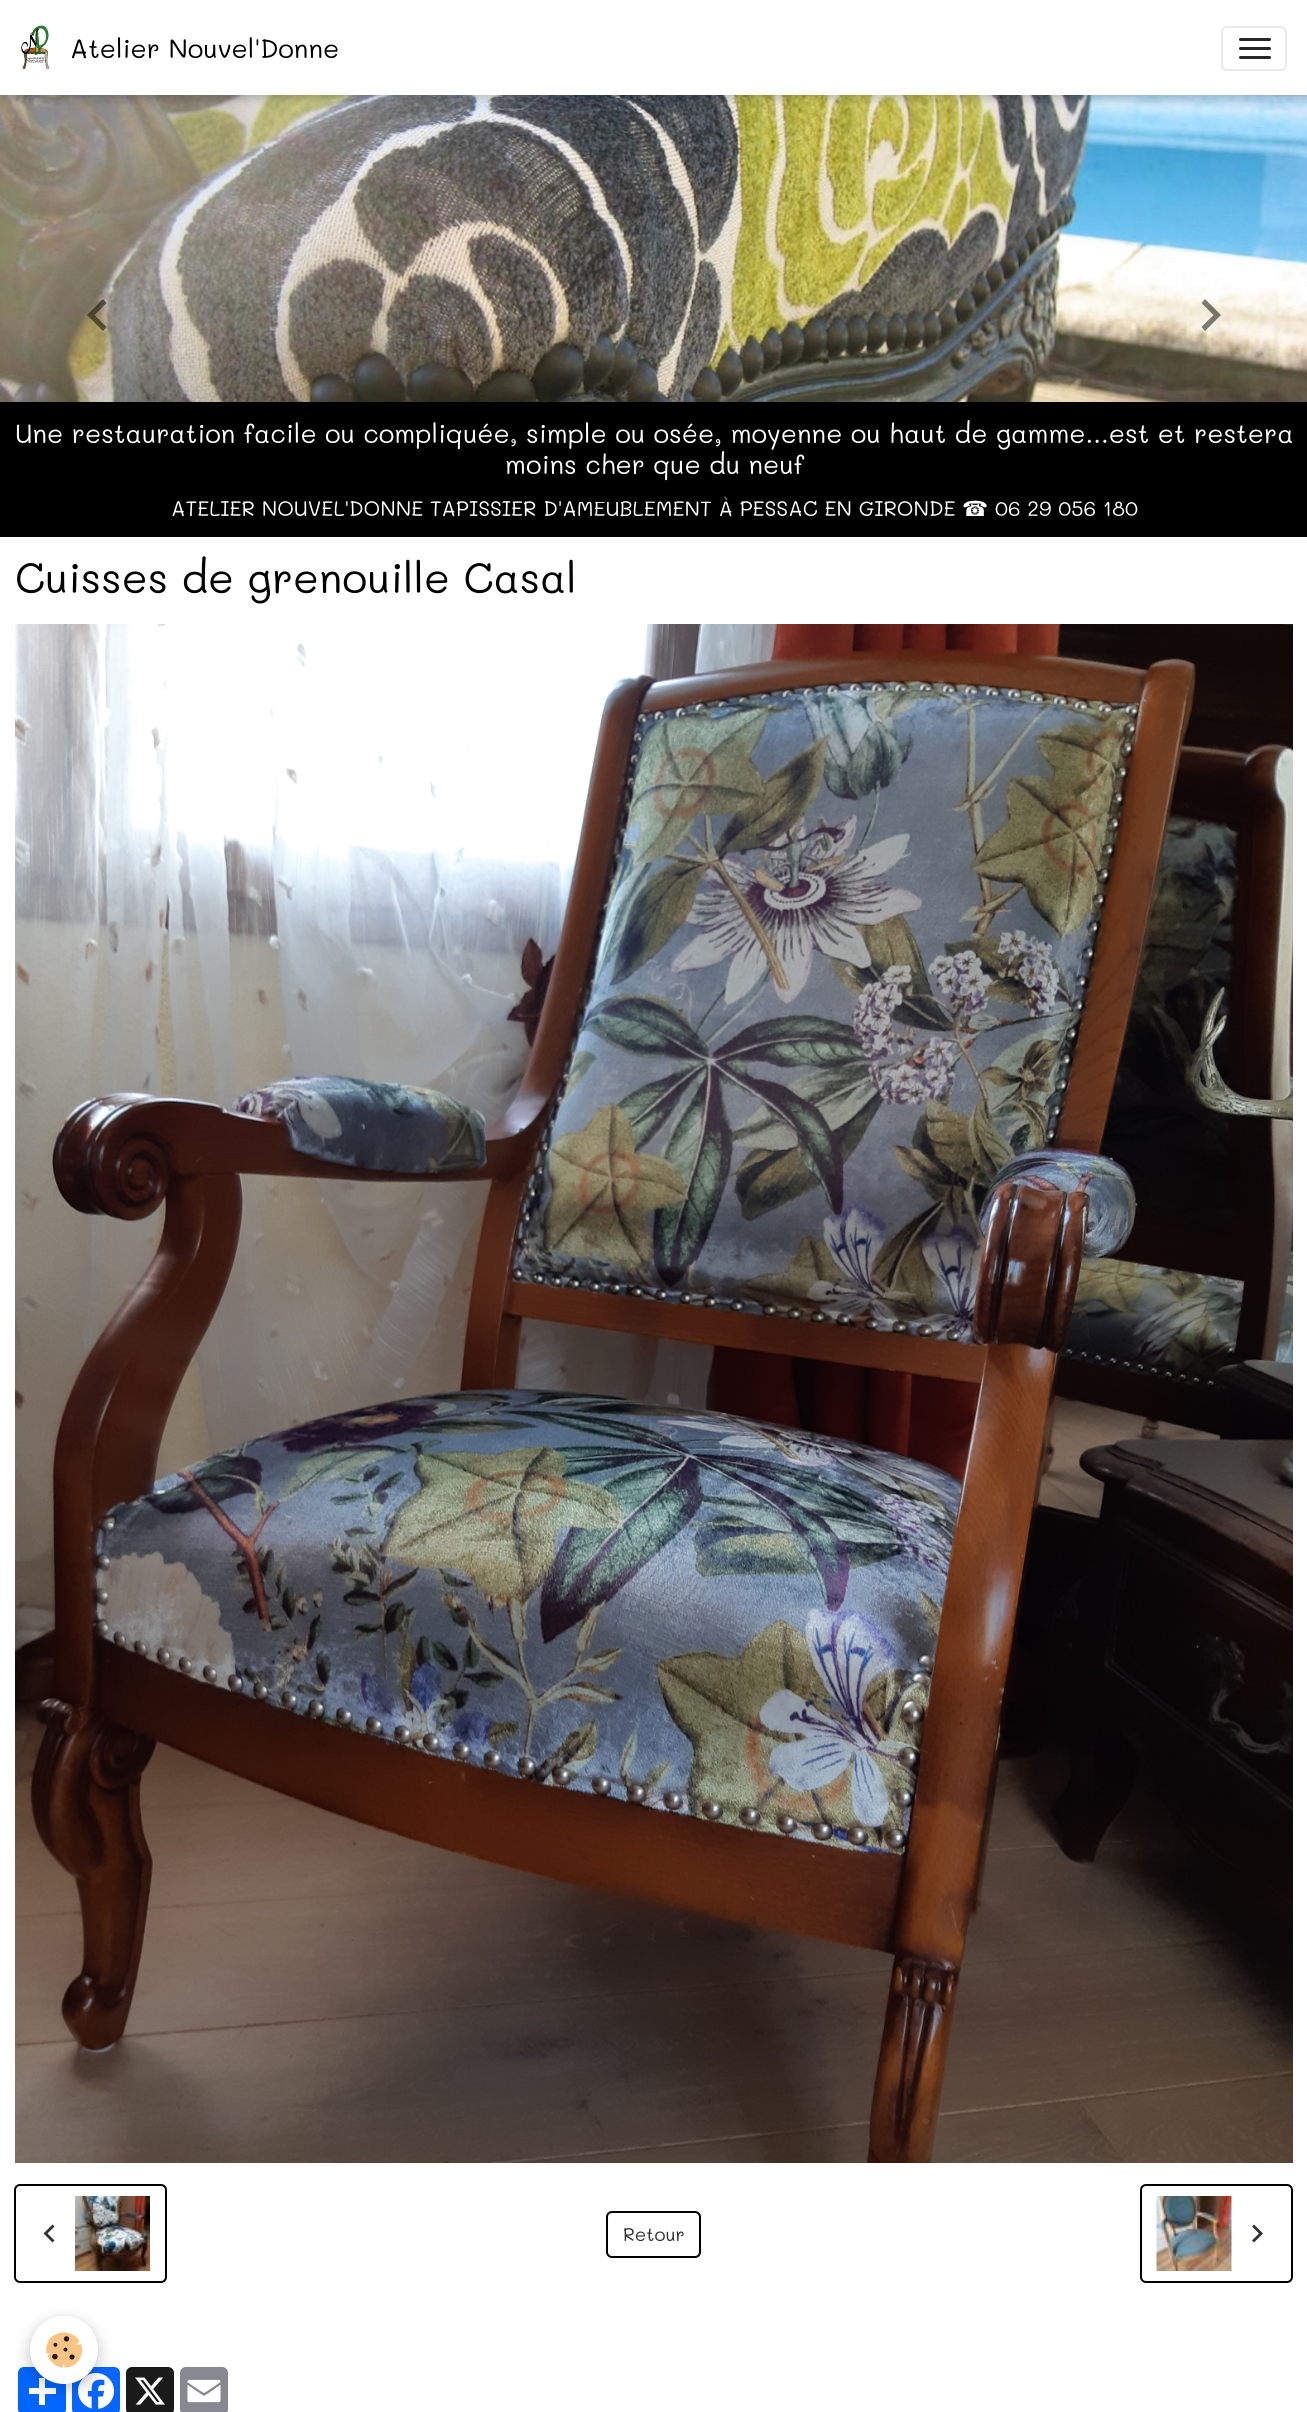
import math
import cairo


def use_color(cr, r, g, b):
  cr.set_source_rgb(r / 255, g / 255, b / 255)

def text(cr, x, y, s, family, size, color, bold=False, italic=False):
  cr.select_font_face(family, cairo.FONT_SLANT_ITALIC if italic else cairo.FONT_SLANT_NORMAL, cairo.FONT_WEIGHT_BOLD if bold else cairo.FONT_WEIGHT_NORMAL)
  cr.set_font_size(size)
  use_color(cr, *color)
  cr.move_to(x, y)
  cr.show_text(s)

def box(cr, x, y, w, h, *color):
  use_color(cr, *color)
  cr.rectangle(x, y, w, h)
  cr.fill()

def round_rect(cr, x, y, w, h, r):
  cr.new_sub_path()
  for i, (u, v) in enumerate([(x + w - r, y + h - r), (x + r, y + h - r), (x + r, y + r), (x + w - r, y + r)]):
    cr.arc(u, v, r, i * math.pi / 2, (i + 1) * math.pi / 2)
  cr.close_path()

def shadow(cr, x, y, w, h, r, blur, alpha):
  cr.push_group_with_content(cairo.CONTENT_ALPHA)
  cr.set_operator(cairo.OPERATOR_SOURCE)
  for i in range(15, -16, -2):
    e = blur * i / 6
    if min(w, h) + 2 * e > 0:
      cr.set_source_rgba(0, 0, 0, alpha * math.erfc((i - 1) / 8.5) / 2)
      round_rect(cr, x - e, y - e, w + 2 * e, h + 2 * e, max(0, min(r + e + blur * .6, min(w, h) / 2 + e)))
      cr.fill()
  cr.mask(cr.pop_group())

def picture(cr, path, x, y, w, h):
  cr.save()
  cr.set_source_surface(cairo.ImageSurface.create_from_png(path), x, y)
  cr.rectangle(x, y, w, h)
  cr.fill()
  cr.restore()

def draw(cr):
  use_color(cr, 255, 255, 255)
  cr.paint()
  picture(cr, "img_02.png", 0, 95, 1307, 307)
  use_color(cr, 0, 0, 0)
  shadow(cr, 0, 5, 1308, 94, 0, 5, 0.2)
  box(cr, 0, 0, 1307, 95, 255, 255, 255)
  picture(cr, "img_01.png", 21, 25, 29, 44)
  round_rect(cr, 1222, 27, 64, 43, 5)
  use_color(cr, 233, 233, 233)
  cr.stroke()
  use_color(cr, 38, 38, 38)
  round_rect(cr, 1239, 38, 32, 3, 1.5)
  cr.fill()
  round_rect(cr, 1239, 47, 32, 3, 1.5)
  cr.fill()
  round_rect(cr, 1239, 56, 32, 3, 1.5)
  cr.fill()
  cr.set_source_rgba(0, 0, 0, 0.5)
  cr.new_path()
  cr.move_to(106.5, 303)
  cr.line_to(94.5, 315)
  cr.line_to(106.5, 327)
  cr.line_to(103, 331)
  cr.line_to(87, 315)
  cr.line_to(103, 299)
  cr.close_path()
  cr.fill()
  cr.new_path()
  cr.move_to(1205, 299)
  cr.line_to(1221, 315)
  cr.line_to(1205, 331)
  cr.line_to(1201.5, 327)
  cr.line_to(1213.5, 315)
  cr.line_to(1201.5, 303)
  cr.close_path()
  cr.fill()
  box(cr, 0, 402, 1307, 135, 0, 0, 0)
  picture(cr, "img_03.png", 15, 624, 1278, 1539)
  round_rect(cr, 15, 2185, 151, 97, 5)
  cr.stroke()
  use_color(cr, 49, 49, 49)
  cr.new_path()
  cr.move_to(54.5, 2226.5)
  cr.line_to(47.5, 2233.5)
  cr.line_to(54.5, 2240.5)
  cr.line_to(52.5, 2242.5)
  cr.line_to(43.5, 2233.5)
  cr.line_to(52.5, 2224.5)
  cr.close_path()
  cr.fill()
  picture(cr, "img_04.png", 75, 2196, 75, 75)
  round_rect(cr, 607, 2212, 93, 45, 5)
  use_color(cr, 0, 0, 0)
  cr.stroke()
  round_rect(cr, 1141, 2185, 151, 97, 5)
  cr.stroke()
  picture(cr, "img_05.png", 1156, 2196, 76, 75)
  use_color(cr, 49, 49, 49)
  cr.new_path()
  cr.move_to(1254, 2224.5)
  cr.line_to(1263, 2233.5)
  cr.line_to(1254, 2242.5)
  cr.line_to(1252, 2240.5)
  cr.line_to(1259, 2233.5)
  cr.line_to(1252, 2226.5)
  cr.close_path()
  cr.fill()
  use_color(cr, 1, 102, 255)
  round_rect(cr, 18, 2367, 48, 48, 6)
  cr.fill()
  box(cr, 39, 2378, 6, 27, 255, 255, 255)
  box(cr, 29, 2388, 27, 6, 255, 255, 255)
  use_color(cr, 8, 102, 255)
  round_rect(cr, 72, 2367, 48, 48, 6)
  cr.fill()
  picture(cr, "img_06.png", 78, 2373, 36, 36)
  use_color(cr, 26, 26, 26)
  round_rect(cr, 126, 2367, 48, 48, 6)
  cr.fill()
  picture(cr, "img_07.png", 135, 2377, 30, 28)
  use_color(cr, 136, 137, 144)
  round_rect(cr, 180, 2367, 48, 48, 6)
  cr.fill()
  picture(cr, "img_08.png", 187, 2379, 34, 24)
  use_color(cr, 0, 0, 0)
  shadow(cr, 30, 2321, 68, 67, 33.5, 7.5, 0.24)
  use_color(cr, 255, 255, 255)
  cr.arc(64, 2350, 34, 0, 2 * math.pi)
  cr.fill()
  picture(cr, "img_09.png", 46, 2332, 37, 36)
  text(cr, 70, 58, "Atelier Nouvel'Donne", "Mali", 26.25, (0, 0, 0))
  text(cr, 15, 443, "Une restauration facile ou compliquée, simple ou osée, moyenne ou haut de gamme...est et restera", "Mali", 26.25, (255, 255, 255))
  text(cr, 505, 474, "moins cher que du neuf", "Mali", 26.25, (255, 255, 255))
  text(cr, 171, 516, "ATELIER NOUVEL'DONNE TAPISSIER D'AMEUBLEMENT À PESSAC EN GIRONDE", "Mali", 21, (255, 255, 255))
  text(cr, 962, 516, "☎", "DejaVu Sans", 21, (255, 255, 255))
  text(cr, 995, 516, "06 29 056 180", "Mali", 21, (255, 255, 255))
  box(cr, 578, 501, 45, 1, 0, 0, 0)
  cr.set_source_rgba(0, 0, 0, 0.5)
  cr.rectangle(632, 501, 45, 1)
  cr.fill()
  cr.rectangle(686, 497, 45, 5)
  cr.fill()
  text(cr, 15, 593, "Cuisses de grenouille Casal", "Mali", 42, (0, 0, 0))
  text(cr, 623, 2241, "Retour", "Mali", 18.5, (49, 49, 49))


surface = cairo.ImageSurface(cairo.FORMAT_RGB24, 1307, 2412)
cr = cairo.Context(surface)
options = cairo.FontOptions()
options.set_hint_metrics(cairo.HINT_METRICS_OFF)
options.set_hint_style(cairo.HINT_STYLE_NONE)
cr.set_font_options(options)
cr.set_miter_limit(4)
draw(cr)
surface.write_to_png("out.png")
